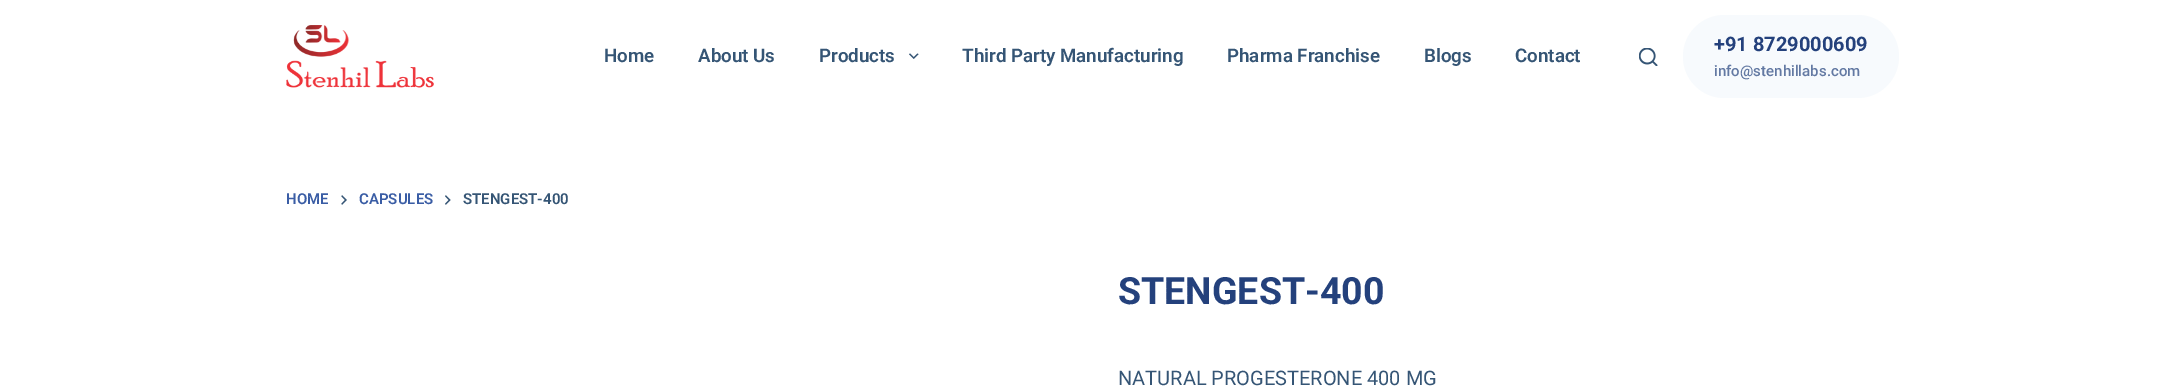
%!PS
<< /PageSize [2184 386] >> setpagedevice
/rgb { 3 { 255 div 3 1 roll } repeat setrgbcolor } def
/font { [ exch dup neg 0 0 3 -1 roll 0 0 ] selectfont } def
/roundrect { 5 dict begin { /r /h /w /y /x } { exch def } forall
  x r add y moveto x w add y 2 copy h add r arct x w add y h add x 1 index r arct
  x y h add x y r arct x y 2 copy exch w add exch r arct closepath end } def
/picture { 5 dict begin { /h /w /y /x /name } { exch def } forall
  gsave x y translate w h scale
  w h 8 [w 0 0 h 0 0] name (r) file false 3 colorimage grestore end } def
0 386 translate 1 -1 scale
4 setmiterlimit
255 255 255 rgb
0 0 2184 386 rectfill
(img/1.rgb) 286 25 148 63 picture
(img/2.rgb) 909 53 10 6 picture
(img/3.rgb) 1639 48 19 18 picture
247 250 253 rgb
1683 15 216 83 41.5 roundrect fill
(img/4.rgb) 341 195 6 10 picture
(img/5.rgb) 445 195 6 10 picture
/Roboto-SemiBold 18.75 font
53 85 117 rgb
[
  [(Home) 604 62]
  [(About Us) 698 62]
  [(Products) 819 62]
  [(Third Party Manufacturing) 962 62]
  [(Pharma Franchise) 1227 62]
  [(Blogs) 1424 62]
  [(Contact) 1515 62]
] { aload pop moveto show } forall
/Roboto-Bold 20 font
36 65 124 rgb
1714 51 moveto (+91 8729000609) show
/Roboto-Medium 15 font
99 121 163 rgb
1714 76 moveto (info@stenhillabs.com) show
/Roboto-SemiBold 15 font
58 93 165 rgb
286 204 moveto (HOME) show
359 204 moveto (CAPSULES) show
53 85 117 rgb
463 204 moveto (STENGEST-400) show
/Roboto-Bold 37.5 font
36 65 124 rgb
1118 304 moveto (STENGEST-400) show
/Roboto-Regular 20 font
53 85 117 rgb
1118 385 moveto (NATURAL PROGESTERONE 400 MG) show
showpage
